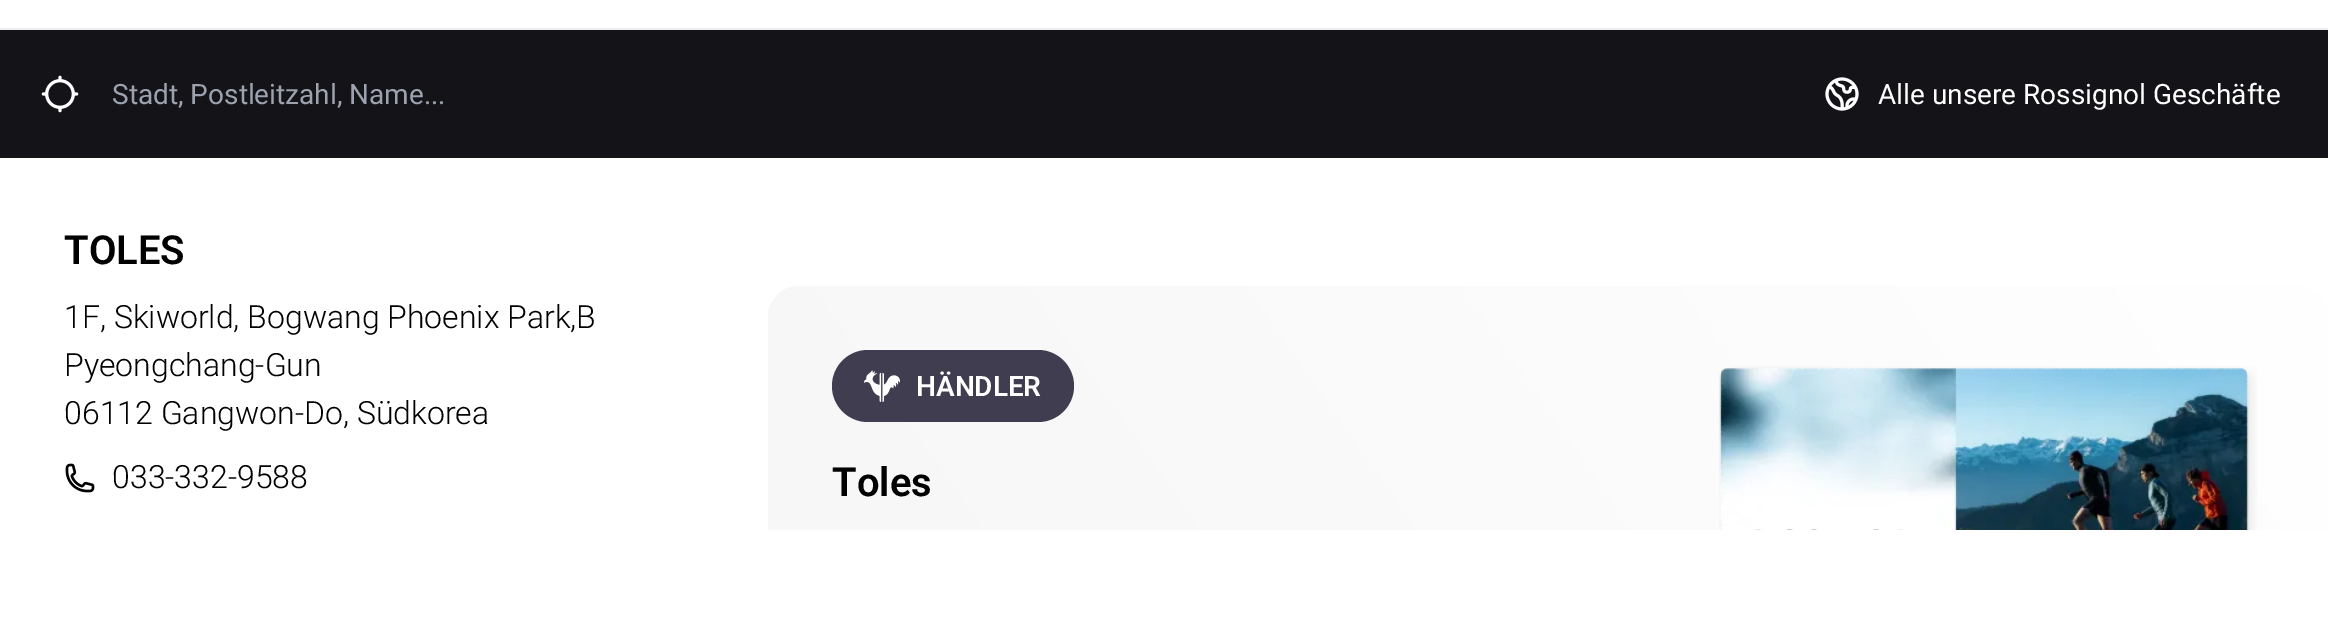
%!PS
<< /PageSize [2328 630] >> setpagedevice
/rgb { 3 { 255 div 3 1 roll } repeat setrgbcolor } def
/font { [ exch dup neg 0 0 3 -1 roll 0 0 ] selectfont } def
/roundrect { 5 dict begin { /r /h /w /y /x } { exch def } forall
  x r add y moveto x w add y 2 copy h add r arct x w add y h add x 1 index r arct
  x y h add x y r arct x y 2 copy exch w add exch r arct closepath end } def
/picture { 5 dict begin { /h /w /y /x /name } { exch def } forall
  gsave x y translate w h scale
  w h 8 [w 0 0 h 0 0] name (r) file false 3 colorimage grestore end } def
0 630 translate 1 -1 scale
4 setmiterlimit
255 255 255 rgb
0 0 2328 630 rectfill
238 237 241 rgb
0 28 2328 2 rectfill
20 19 24 rgb
0 30 2328 128 rectfill
(img/1.rgb) 41 75 38 38 picture
(img/2.rgb) 1825 77 34 34 picture
(img/3.rgb) 65 463 30 30 picture
gsave 800 286 moveto 2296 286 lineto 2313.5 286 2328 300.5 2328 318 curveto 2328 530 lineto 768 530 lineto 768 318 lineto 768 300.5 782.5 286 800 286 curveto closepath clip newpath
<< /ShadingType 2 /ColorSpace /DeviceRGB /Coords [506 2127 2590 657] /Extend [true true] /Function << /FunctionType 2 /Domain [0 1] /C0 [0.945 0.945 0.945] /C1 [1 1 1] /N 1 >> >> shfill grestore
63 61 79 rgb
832 350 242 72 36 roundrect fill
(img/4.rgb) 864 370 36 32 picture
(img/5.rgb) 1719 366 538 164 picture
/Roboto-Regular 28 font
156 163 175 rgb
112 104 moveto (Stadt, Postleitzahl, Name...) show
255 255 255 rgb
1878 104 moveto (Alle unsere Rossignol Geschäfte) show
/Roboto-SemiBold 40 font
0 0 0 rgb
64 264 moveto (TOLES) show
/Roboto-Light 32 font
[
  [(1F, Skiworld, Bogwang Phoenix Park,B) 64 328]
  [(Pyeongchang-Gun) 64 376]
  [(06112 Gangwon-Do, Südkorea) 64 424]
  [(033-332-9588) 112 488]
] { aload pop moveto show } forall
/Roboto-SemiBold 28 font
255 255 255 rgb
916 396 moveto (HÄNDLER) show
/Roboto-SemiBold 40 font
0 0 0 rgb
832 496 moveto (Toles) show
showpage
